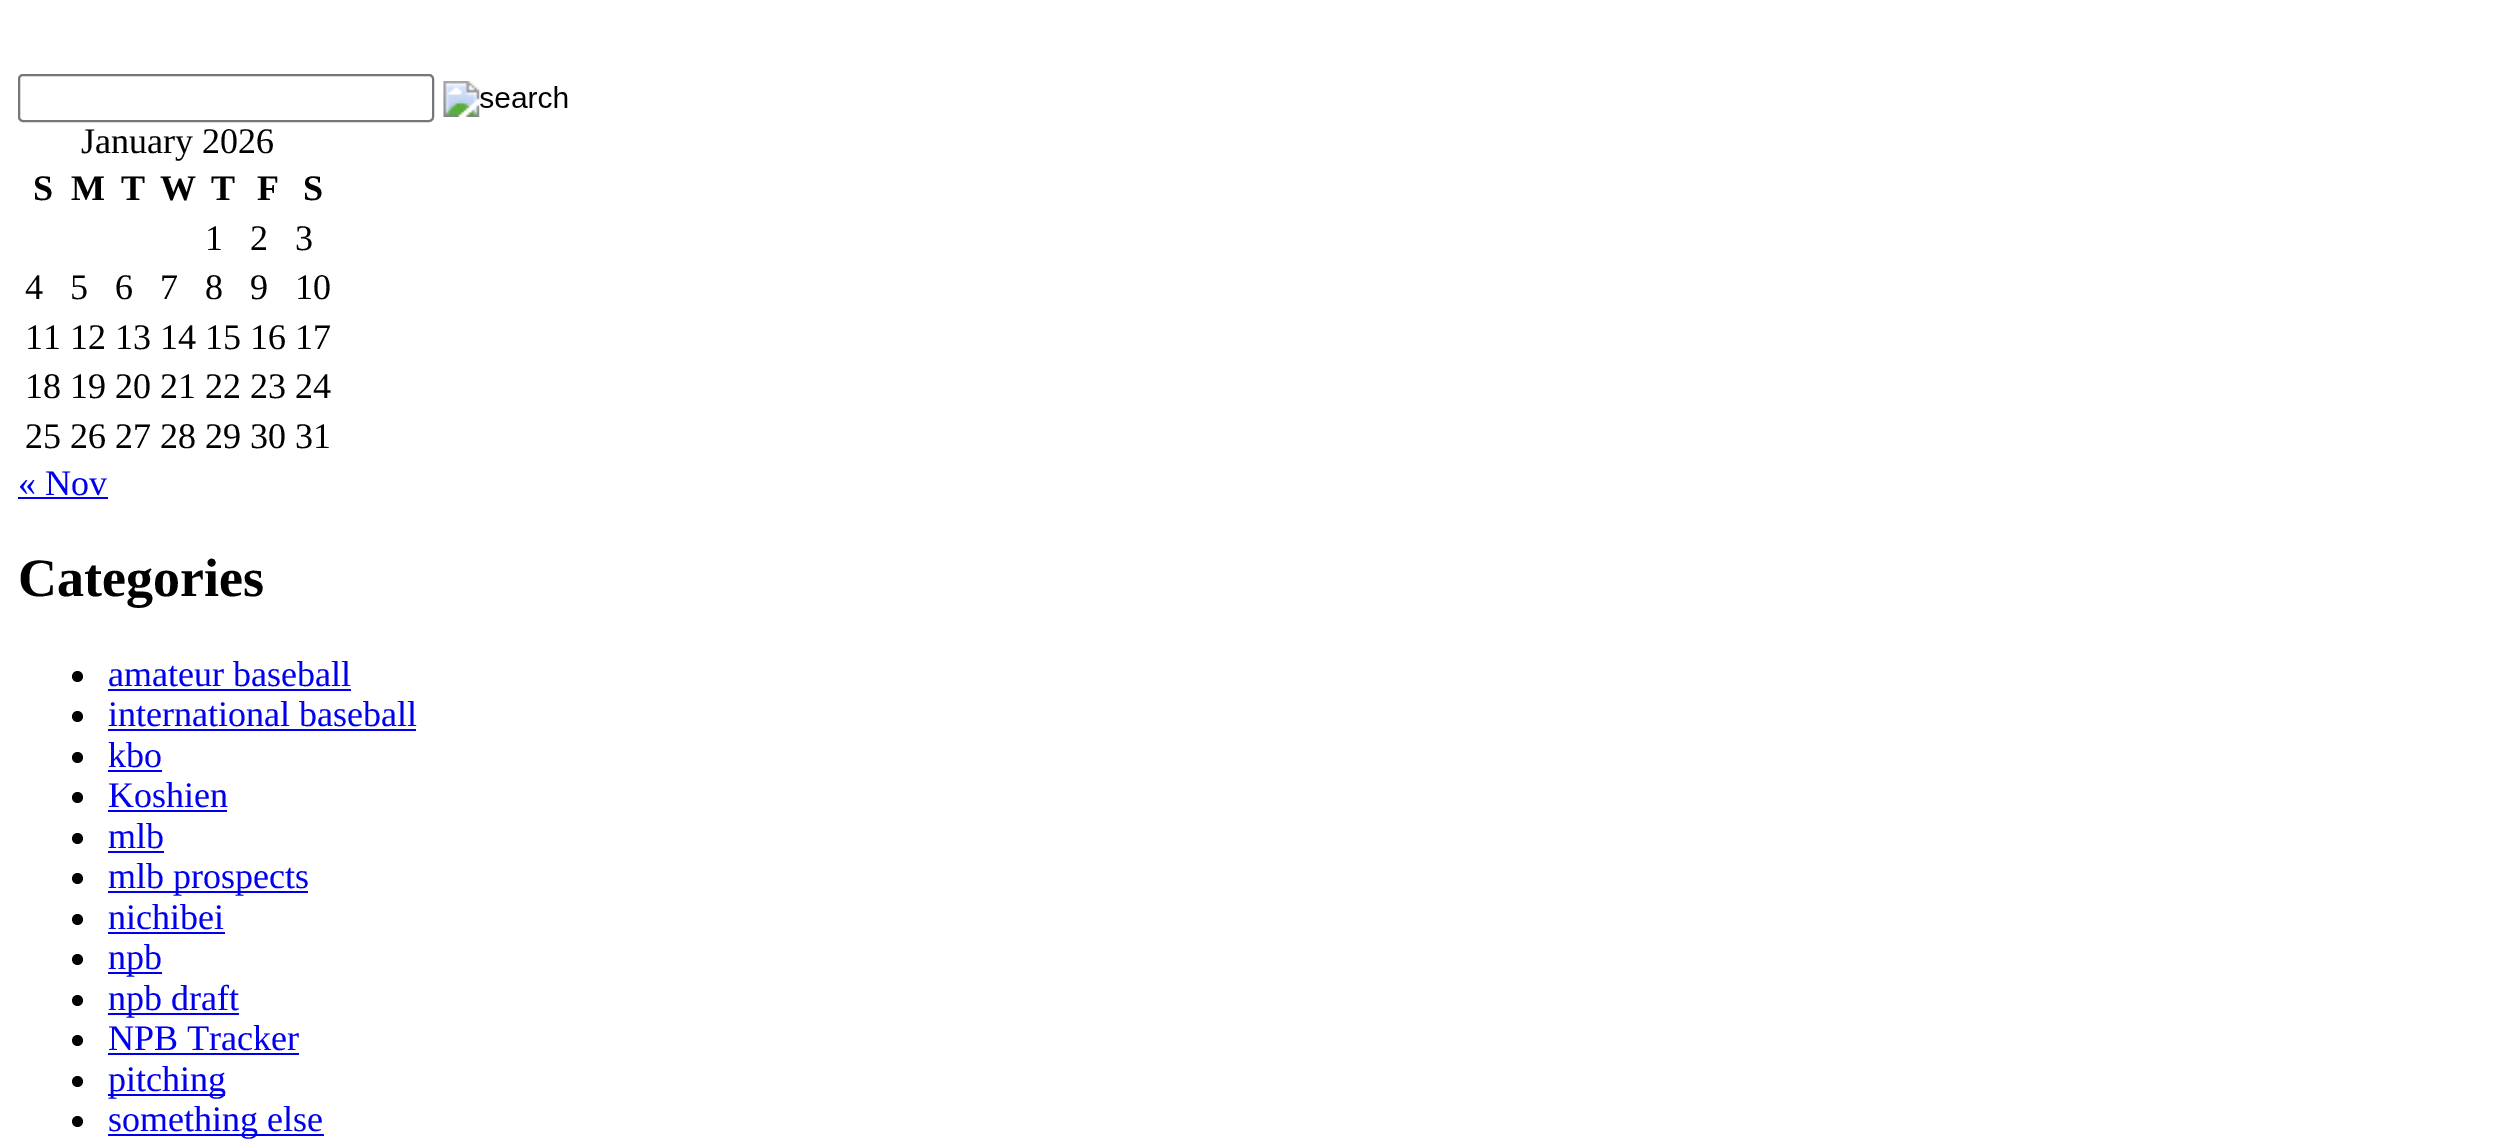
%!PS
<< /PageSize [2514 1146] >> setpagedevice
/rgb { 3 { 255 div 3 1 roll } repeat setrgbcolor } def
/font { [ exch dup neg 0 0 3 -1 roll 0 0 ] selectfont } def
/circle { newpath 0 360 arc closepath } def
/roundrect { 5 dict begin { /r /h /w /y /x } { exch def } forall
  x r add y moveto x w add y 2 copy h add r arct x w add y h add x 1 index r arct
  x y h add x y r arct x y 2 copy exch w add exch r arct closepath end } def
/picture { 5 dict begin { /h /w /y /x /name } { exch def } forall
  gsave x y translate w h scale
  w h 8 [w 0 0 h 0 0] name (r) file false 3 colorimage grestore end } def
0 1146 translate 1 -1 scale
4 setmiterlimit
255 255 255 rgb
0 0 2514 1146 rectfill
118 118 118 rgb
2 setlinewidth
19 75 414 46 4 roundrect stroke
(img/1.rgb) 443 81 125 36 picture
0 0 238 rgb
18 497 90 2 rectfill
0 0 0 rgb
77.5 676.5 5.5 circle fill
0 0 238 rgb
108 689 243 2 rectfill
0 0 0 rgb
77.5 716.5 5.5 circle fill
0 0 238 rgb
108 729 308 2 rectfill
0 0 0 rgb
77.5 757.5 5.5 circle fill
0 0 238 rgb
108 770 54 2 rectfill
0 0 0 rgb
77.5 797.5 5.5 circle fill
0 0 238 rgb
108 810 119 2 rectfill
0 0 0 rgb
77.5 838.5 5.5 circle fill
0 0 238 rgb
108 851 56 2 rectfill
0 0 0 rgb
77.5 878.5 5.5 circle fill
0 0 238 rgb
108 891 200 2 rectfill
0 0 0 rgb
77.5 919.5 5.5 circle fill
0 0 238 rgb
108 932 117 2 rectfill
0 0 0 rgb
77.5 959.5 5.5 circle fill
0 0 238 rgb
108 972 54 2 rectfill
0 0 0 rgb
77.5 1000.5 5.5 circle fill
0 0 238 rgb
108 1013 131 2 rectfill
0 0 0 rgb
77.5 1040.5 5.5 circle fill
0 0 238 rgb
108 1053 191 2 rectfill
0 0 0 rgb
77.5 1081.5 5.5 circle fill
0 0 238 rgb
108 1094 117 2 rectfill
0 0 0 rgb
77.5 1121.5 5.5 circle fill
0 0 238 rgb
108 1134 216 2 rectfill
/LiberationSerif-Regular 36 font
0 0 0 rgb
81 153 moveto (January 2026) show
/LiberationSerif-Bold 36 font
[
  [(S) 33 200]
  [(M) 71 200]
  [(T) 121 200]
  [(W) 160 200]
  [(T) 211 200]
  [(F) 257 200]
  [(S) 303 200]
] { aload pop moveto show } forall
/LiberationSerif-Regular 36 font
[
  [(1) 205 250]
  [(2) 250 250]
  [(3) 295 250]
  [(4) 25 299]
  [(5) 70 299]
  [(6) 115 299]
  [(7) 160 299]
  [(8) 205 299]
  [(9) 250 299]
  [(10) 295 299]
  [(11 12 13 14 15 16 17) 25 349]
  [(18 19 20 21 22 23 24) 25 398]
  [(25 26 27 28 29 30 31) 25 448]
] { aload pop moveto show } forall
0 0 238 rgb
18 495 moveto (« Nov) show
/LiberationSerif-Bold 54 font
0 0 0 rgb
18 596 moveto (Categories) show
/LiberationSerif-Regular 36 font
0 0 238 rgb
[
  [(amateur baseball) 108 686]
  [(international baseball) 108 726]
  [(kbo) 108 767]
  [(Koshien) 108 807]
  [(mlb) 108 848]
  [(mlb prospects) 108 888]
  [(nichibei) 108 929]
  [(npb) 108 969]
  [(npb draft) 108 1010]
  [(NPB Tracker) 108 1050]
  [(pitching) 108 1091]
  [(something else) 108 1131]
] { aload pop moveto show } forall
showpage
